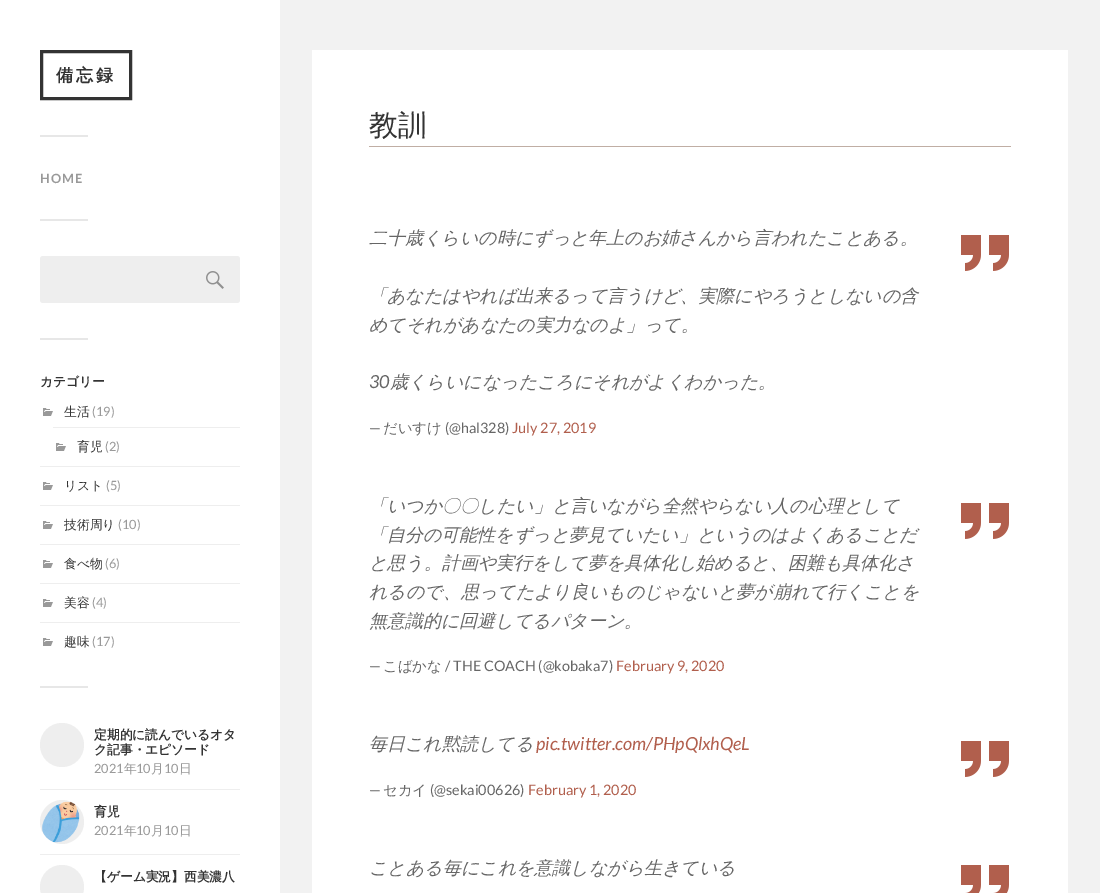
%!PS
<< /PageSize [1100 893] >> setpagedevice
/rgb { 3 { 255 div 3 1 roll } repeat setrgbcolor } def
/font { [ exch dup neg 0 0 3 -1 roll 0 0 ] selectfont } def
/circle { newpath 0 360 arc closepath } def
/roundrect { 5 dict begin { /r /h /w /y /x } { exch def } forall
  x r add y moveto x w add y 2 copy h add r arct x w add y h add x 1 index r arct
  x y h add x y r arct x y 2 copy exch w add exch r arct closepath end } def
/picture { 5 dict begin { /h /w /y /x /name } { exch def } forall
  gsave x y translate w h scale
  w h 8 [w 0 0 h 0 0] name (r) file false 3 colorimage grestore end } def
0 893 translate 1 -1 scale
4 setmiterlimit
242 242 242 rgb
0 0 1100 893 rectfill
255 255 255 rgb
0 0 280 893 rectfill
51 51 51 rgb
3 setlinewidth
41.5 51.5 89 47 rectstroke
231 231 231 rgb
40 135 48 2 rectfill
40 219 48 2 rectfill
238 238 238 rgb
40 256 200 47 3 roundrect fill
(img/1.rgb) 206 271 18 18 picture
231 231 231 rgb
40 338 48 2 rectfill
238 238 238 rgb
40 466 200 1 rectfill
(img/2.rgb) 43 408 10 8 picture
53 427 187 1 rectfill
(img/2.rgb) 56 443 10 8 picture
40 505 200 1 rectfill
(img/2.rgb) 43 482 10 8 picture
40 544 200 1 rectfill
(img/2.rgb) 43 521 10 8 picture
40 583 200 1 rectfill
(img/2.rgb) 43 560 10 8 picture
40 622 200 1 rectfill
(img/2.rgb) 43 599 10 8 picture
(img/2.rgb) 43 638 10 8 picture
231 231 231 rgb
40 686 48 2 rectfill
238 238 238 rgb
40 789 200 1 rectfill
62 745 22 circle fill
40 854 200 1 rectfill
62 822 22 circle fill
(img/3.rgb) 42 801 38 42 picture
62 887 22 circle fill
255 255 255 rgb
312 50 756 843 rectfill
192 174 164 rgb
369 146 642 1 rectfill
(img/4.rgb) 961 235 48 36 picture
(img/4.rgb) 961 503 48 36 picture
(img/4.rgb) 961 741 48 36 picture
(img/5.rgb) 961 865 48 28 picture
/WenQuanYiZenHei-Bold 17 font
51 51 51 rgb
56 81 moveto 3 0 (備忘録) ashow
/Lato-Bold 12.75 font
153 153 153 rgb
40 183 moveto 1 0 (HOME) ashow
/WenQuanYiZenHei-Bold 12.75 font
51 51 51 rgb
40 386 moveto (カテゴリー) show
/WenQuanYiZenHei-Medium 12.75 font
64 416 moveto (生活) show
/Lato-Regular 12.75 font
153 153 153 rgb
92 416 moveto (\(19\)) show
/WenQuanYiZenHei-Medium 12.75 font
51 51 51 rgb
77 451 moveto (育児) show
/Lato-Regular 12.75 font
153 153 153 rgb
105 451 moveto (\(2\)) show
/WenQuanYiZenHei-Medium 12.75 font
51 51 51 rgb
64 490 moveto (リスト) show
/Lato-Regular 12.75 font
153 153 153 rgb
106 490 moveto (\(5\)) show
/WenQuanYiZenHei-Medium 12.75 font
51 51 51 rgb
64 529 moveto (技術周り) show
/Lato-Regular 12.75 font
153 153 153 rgb
118 529 moveto (\(10\)) show
/WenQuanYiZenHei-Medium 12.75 font
51 51 51 rgb
64 568 moveto (食べ物) show
/Lato-Regular 12.75 font
153 153 153 rgb
105 568 moveto (\(6\)) show
/WenQuanYiZenHei-Medium 12.75 font
51 51 51 rgb
64 607 moveto (美容) show
/Lato-Regular 12.75 font
153 153 153 rgb
92 607 moveto (\(4\)) show
/WenQuanYiZenHei-Medium 12.75 font
51 51 51 rgb
64 646 moveto (趣味) show
/Lato-Regular 12.75 font
153 153 153 rgb
92 646 moveto (\(17\)) show
/WenQuanYiZenHei-Bold 12.75 font
51 51 51 rgb
94 739 moveto (定期的に読んでいるオタ) show
94 754 moveto (ク記事・エピソード) show
/Lato-Regular 12.75 font
153 153 153 rgb
94 773 moveto (2021) show
/WenQuanYiZenHei-Medium 12.75 font
124 773 moveto (年) show
/Lato-Regular 12.75 font
136 773 moveto (10) show
/WenQuanYiZenHei-Medium 12.75 font
151 773 moveto (月) show
/Lato-Regular 12.75 font
164 773 moveto (10) show
/WenQuanYiZenHei-Medium 12.75 font
179 773 moveto (日) show
/WenQuanYiZenHei-Bold 12.75 font
51 51 51 rgb
94 816 moveto (育児) show
/Lato-Regular 12.75 font
153 153 153 rgb
94 835 moveto (2021) show
/WenQuanYiZenHei-Medium 12.75 font
124 835 moveto (年) show
/Lato-Regular 12.75 font
136 835 moveto (10) show
/WenQuanYiZenHei-Medium 12.75 font
151 835 moveto (月) show
/Lato-Regular 12.75 font
164 835 moveto (10) show
/WenQuanYiZenHei-Medium 12.75 font
179 835 moveto (日) show
/WenQuanYiZenHei-Bold 12.75 font
51 51 51 rgb
94 881 moveto (【ゲーム実況】西美濃八) show
/WenQuanYiZenHei-Medium 29 font
369 135 moveto (教訓) show
/WenQuanYiZenHei-MediumItalic 18 font
102 102 102 rgb
[
  [(二十歳くらいの時にずっと年上のお姉さんから言われたことある。) 369 244]
  [(「あなたはやれば出来るって言うけど、実際にやろうとしないの含) 369 302]
  [(めてそれがあなたの実力なのよ」って。) 369 331]
] { aload pop moveto show } forall
/Lato-Italic 18 font
369 388 moveto (30) show
/WenQuanYiZenHei-MediumItalic 18 font
390 388 moveto (歳くらいになったころにそれがよくわかった。) show
/Lato-Regular 14.4 font
369 433 moveto (—) show
/WenQuanYiZenHei-Medium 14.4 font
383 433 moveto (だいすけ) show
/Lato-Regular 14.4 font
445 433 moveto (\(@hal328\)) show
177 95 77 rgb
512 433 moveto (July 27, 2019) show
/WenQuanYiZenHei-MediumItalic 18 font
102 102 102 rgb
[
  [(「いつか〇〇したい」と言いながら全然やらない人の心理として) 369 512]
  [(「自分の可能性をずっと夢見ていたい」というのはよくあることだ) 369 541]
  [(と思う。計画や実行をして夢を具体化し始めると、困難も具体化さ) 369 569]
  [(れるので、思ってたより良いものじゃないと夢が崩れて行くことを) 369 598]
  [(無意識的に回避してるパターン。) 369 627]
] { aload pop moveto show } forall
/Lato-Regular 14.4 font
369 671 moveto (—) show
/WenQuanYiZenHei-Medium 14.4 font
383 671 moveto (こばかな) show
/Lato-Regular 14.4 font
445 671 moveto (/ THE COACH \(@kobaka7\)) show
177 95 77 rgb
616 671 moveto (February 9, 2020) show
/WenQuanYiZenHei-MediumItalic 18 font
102 102 102 rgb
369 750 moveto (毎日これ黙読してる) show
/Lato-Italic 18 font
177 95 77 rgb
536 750 moveto (pic.twitter.com/PHpQlxhQeL) show
/Lato-Regular 14.4 font
102 102 102 rgb
369 795 moveto (—) show
/WenQuanYiZenHei-Medium 14.4 font
383 795 moveto (セカイ) show
/Lato-Regular 14.4 font
430 795 moveto (\(@sekai00626\)) show
177 95 77 rgb
528 795 moveto (February 1, 2020) show
/WenQuanYiZenHei-MediumItalic 18 font
102 102 102 rgb
369 874 moveto (ことある毎にこれを意識しながら生きている) show
showpage
